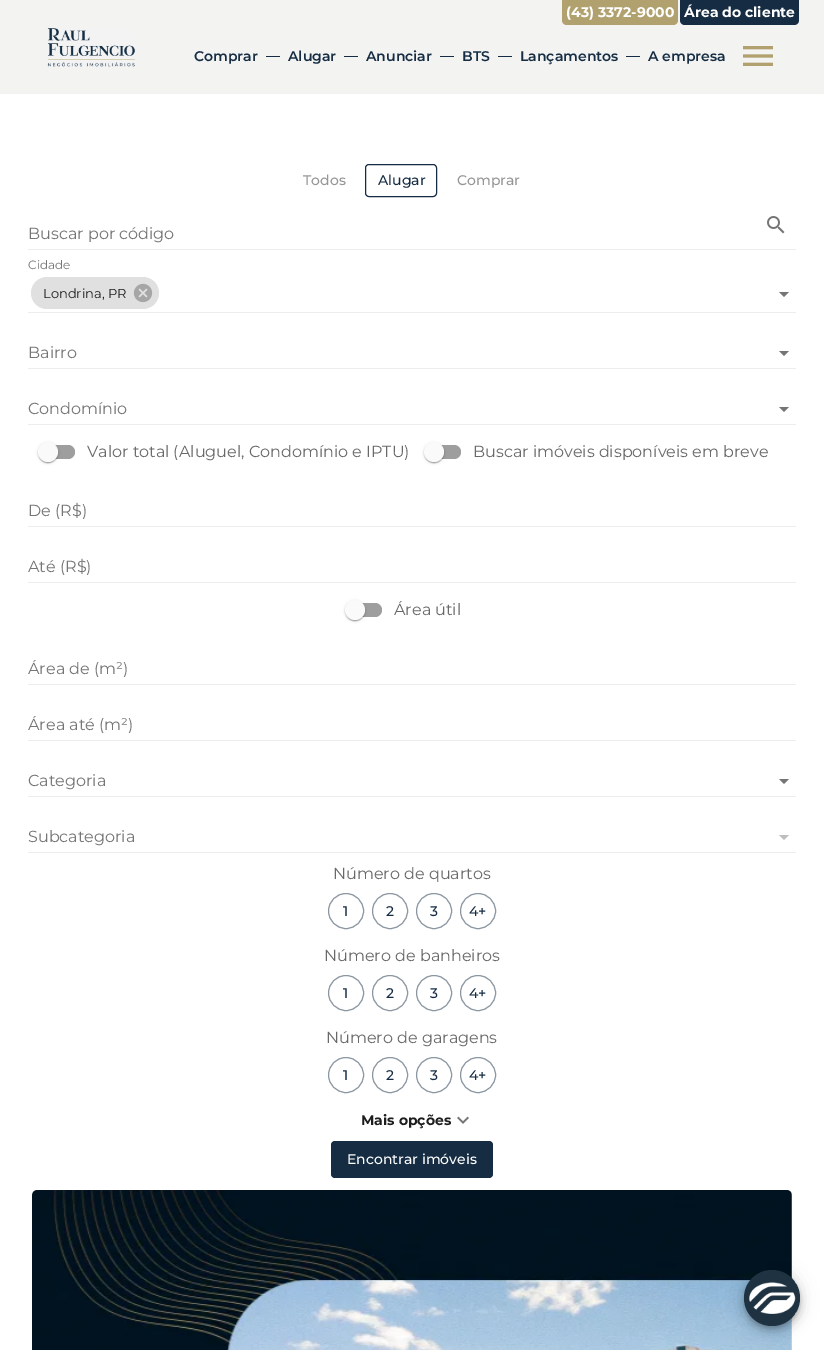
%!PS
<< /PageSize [824 1350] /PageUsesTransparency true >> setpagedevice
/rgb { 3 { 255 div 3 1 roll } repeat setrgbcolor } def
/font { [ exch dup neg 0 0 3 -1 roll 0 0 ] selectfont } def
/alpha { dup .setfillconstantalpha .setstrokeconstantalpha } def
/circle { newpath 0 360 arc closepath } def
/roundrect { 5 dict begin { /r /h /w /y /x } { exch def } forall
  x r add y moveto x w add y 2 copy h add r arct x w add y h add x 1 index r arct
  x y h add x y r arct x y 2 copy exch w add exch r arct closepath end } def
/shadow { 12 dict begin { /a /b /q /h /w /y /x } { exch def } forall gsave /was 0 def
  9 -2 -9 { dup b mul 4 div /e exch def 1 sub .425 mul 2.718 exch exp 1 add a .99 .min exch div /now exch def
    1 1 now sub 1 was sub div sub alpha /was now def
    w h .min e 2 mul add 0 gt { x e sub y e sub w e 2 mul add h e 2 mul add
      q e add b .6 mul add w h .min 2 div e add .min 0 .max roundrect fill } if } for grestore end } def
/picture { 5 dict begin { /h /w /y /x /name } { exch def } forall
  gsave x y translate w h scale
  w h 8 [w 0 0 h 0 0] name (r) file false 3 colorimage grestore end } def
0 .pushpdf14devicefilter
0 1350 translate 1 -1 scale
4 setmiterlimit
255 255 255 rgb
0 0 824 1350 rectfill
243 243 242 rgb
0 0 824 94 rectfill
177 161 110 rgb
562 0 moveto 678 0 lineto 678 20 lineto 678 23 676 25 673 25 curveto 567 25 lineto 564 25 562 23 562 20 curveto closepath fill
21 44 67 rgb
680 0 moveto 799 0 lineto 799 20 lineto 799 23 797 25 794 25 curveto 685 25 lineto 682 25 680 23 680 20 curveto closepath fill
(img/1.rgb) 47 28 89 39 picture
[
  [266 56 14 1 21 44 67]
  [344 56 14 1 21 44 67]
  [440 56 14 1 21 44 67]
  [498 56 14 1 21 44 67]
  [626 56 14 1 21 44 67]
] { aload pop rgb rectfill } forall
(img/2.rgb) 743 46 30 20 picture
365.5 164.5 71 32 3.5 roundrect stroke
237 237 237 rgb
28 249 768 1 rectfill
(img/3.rgb) 767 216 18 18 picture
224 224 224 rgb
31 277 128 32 16 roundrect fill
(img/4.rgb) 133 283 20 20 picture
117 117 117 rgb
779 292 moveto 784 297 lineto 789 292 lineto closepath fill
237 237 237 rgb
28 312 768 1 rectfill
117 117 117 rgb
779 351 moveto 784 356 lineto 789 351 lineto closepath fill
237 237 237 rgb
28 368 768 1 rectfill
117 117 117 rgb
779 407 moveto 784 412 lineto 789 407 lineto closepath fill
237 237 237 rgb
28 424 768 1 rectfill
158 158 158 rgb
41 445 34 14 7 roundrect fill
0 0 0 rgb
38 443 20 20 10 1.5 0.12 shadow
38 443 20 20 10 0.5 0.14 shadow
39 445 18 18 9 0.5 0.2 shadow
250 250 250 rgb
48 452 10 circle fill
158 158 158 rgb
427 445 34 14 7 roundrect fill
0 0 0 rgb
424 443 20 20 10 1.5 0.12 shadow
424 443 20 20 10 0.5 0.14 shadow
425 445 18 18 9 0.5 0.2 shadow
250 250 250 rgb
434 452 10 circle fill
237 237 237 rgb
28 526 768 1 rectfill
28 582 768 1 rectfill
158 158 158 rgb
348 603 34 14 7 roundrect fill
0 0 0 rgb
345 601 20 20 10 1.5 0.12 shadow
345 601 20 20 10 0.5 0.14 shadow
346 603 18 18 9 0.5 0.2 shadow
250 250 250 rgb
355 610 10 circle fill
237 237 237 rgb
28 684 768 1 rectfill
28 740 768 1 rectfill
117 117 117 rgb
779 779 moveto 784 784 lineto 789 779 lineto closepath fill
237 237 237 rgb
28 796 768 1 rectfill
189 189 189 rgb
779 835 moveto 784 840 lineto 789 835 lineto closepath fill
237 237 237 rgb
28 852 768 1 rectfill
138 150 161 rgb
346 911 17.5 circle stroke
390 911 17.5 circle stroke
434 911 17.5 circle stroke
478 911 17.5 circle stroke
346 993 17.5 circle stroke
390 993 17.5 circle stroke
434 993 17.5 circle stroke
478 993 17.5 circle stroke
346 1075 17.5 circle stroke
390 1075 17.5 circle stroke
434 1075 17.5 circle stroke
478 1075 17.5 circle stroke
(img/5.rgb) 457 1116 12 8 picture
21 44 67 rgb
331 1141 162 37 4 roundrect fill
(img/6.rgb) 32 1190 760 160 picture
0 0 0 rgb
744 1271 56 56 28 9 0.12 shadow
744 1276 56 56 28 5 0.14 shadow
745 1274 54 54 27 2.5 0.2 shadow
30 50 65 rgb
772 1298 28 circle fill
(img/7.rgb) 749 1282 47 32 picture
/Montserrat-Bold 14 font
255 255 255 rgb
566 17 moveto (\(43\) 3372-9000) show
684 17 moveto (Área do cliente) show
/Montserrat-SemiBold 14 font
21 44 67 rgb
[
  [(Comprar) 194 61]
  [(Alugar) 288 61]
  [(Anunciar) 366 61]
  [(BTS) 462 61]
  [(Lançamentos) 520 61]
  [(A empresa) 648 61]
] { aload pop moveto show } forall
/Montserrat-Medium 14 font
150 150 150 rgb
303 185 moveto (Todos) show
21 44 67 rgb
378 185 moveto (Alugar) show
150 150 150 rgb
457 185 moveto (Comprar) show
/Montserrat-Regular 16 font
117 117 117 rgb
28 239 moveto (Buscar por código) show
/Montserrat-Regular 12 font
28 269 moveto (Cidade) show
/Montserrat-Regular 13 font
29 29 29 rgb
43 298 moveto (Londrina, PR) show
/Montserrat-Regular 16 font
117 117 117 rgb
28 358 moveto (Bairro) show
28 414 moveto (Condomínio) show
105 105 105 rgb
87 457 moveto (Valor total \(Aluguel, Condomínio e IPTU\)) show
473 457 moveto (Buscar imóveis disponíveis em breve) show
117 117 117 rgb
28 516 moveto (De \(R$\)) show
28 572 moveto (Até \(R$\)) show
105 105 105 rgb
394 615 moveto (Área útil) show
117 117 117 rgb
[
  [(Área de \(m²\)) 28 674]
  [(Área até \(m²\)) 28 730]
  [(Categoria) 28 786]
  [(Subcategoria) 28 842]
] { aload pop moveto show } forall
105 105 105 rgb
333 879 moveto (Número de quartos) show
/Montserrat-Medium 14 font
21 44 67 rgb
[
  [(1) 343 916]
  [(2) 386 916]
  [(3) 430 916]
  [(4+) 469 916]
] { aload pop moveto show } forall
/Montserrat-Regular 16 font
105 105 105 rgb
324 961 moveto (Número de banheiros) show
/Montserrat-Medium 14 font
21 44 67 rgb
[
  [(1) 343 998]
  [(2) 386 998]
  [(3) 430 998]
  [(4+) 469 998]
] { aload pop moveto show } forall
/Montserrat-Regular 16 font
105 105 105 rgb
326 1043 moveto (Número de garagens) show
/Montserrat-Medium 14 font
21 44 67 rgb
[
  [(1) 343 1080]
  [(2) 386 1080]
  [(3) 430 1080]
  [(4+) 469 1080]
] { aload pop moveto show } forall
/Montserrat-Bold 14 font
29 29 29 rgb
361 1125 moveto (Mais opções) show
/Montserrat-Medium 14 font
255 255 255 rgb
347 1164 moveto (Encontrar imóveis) show
.poppdf14devicefilter showpage
